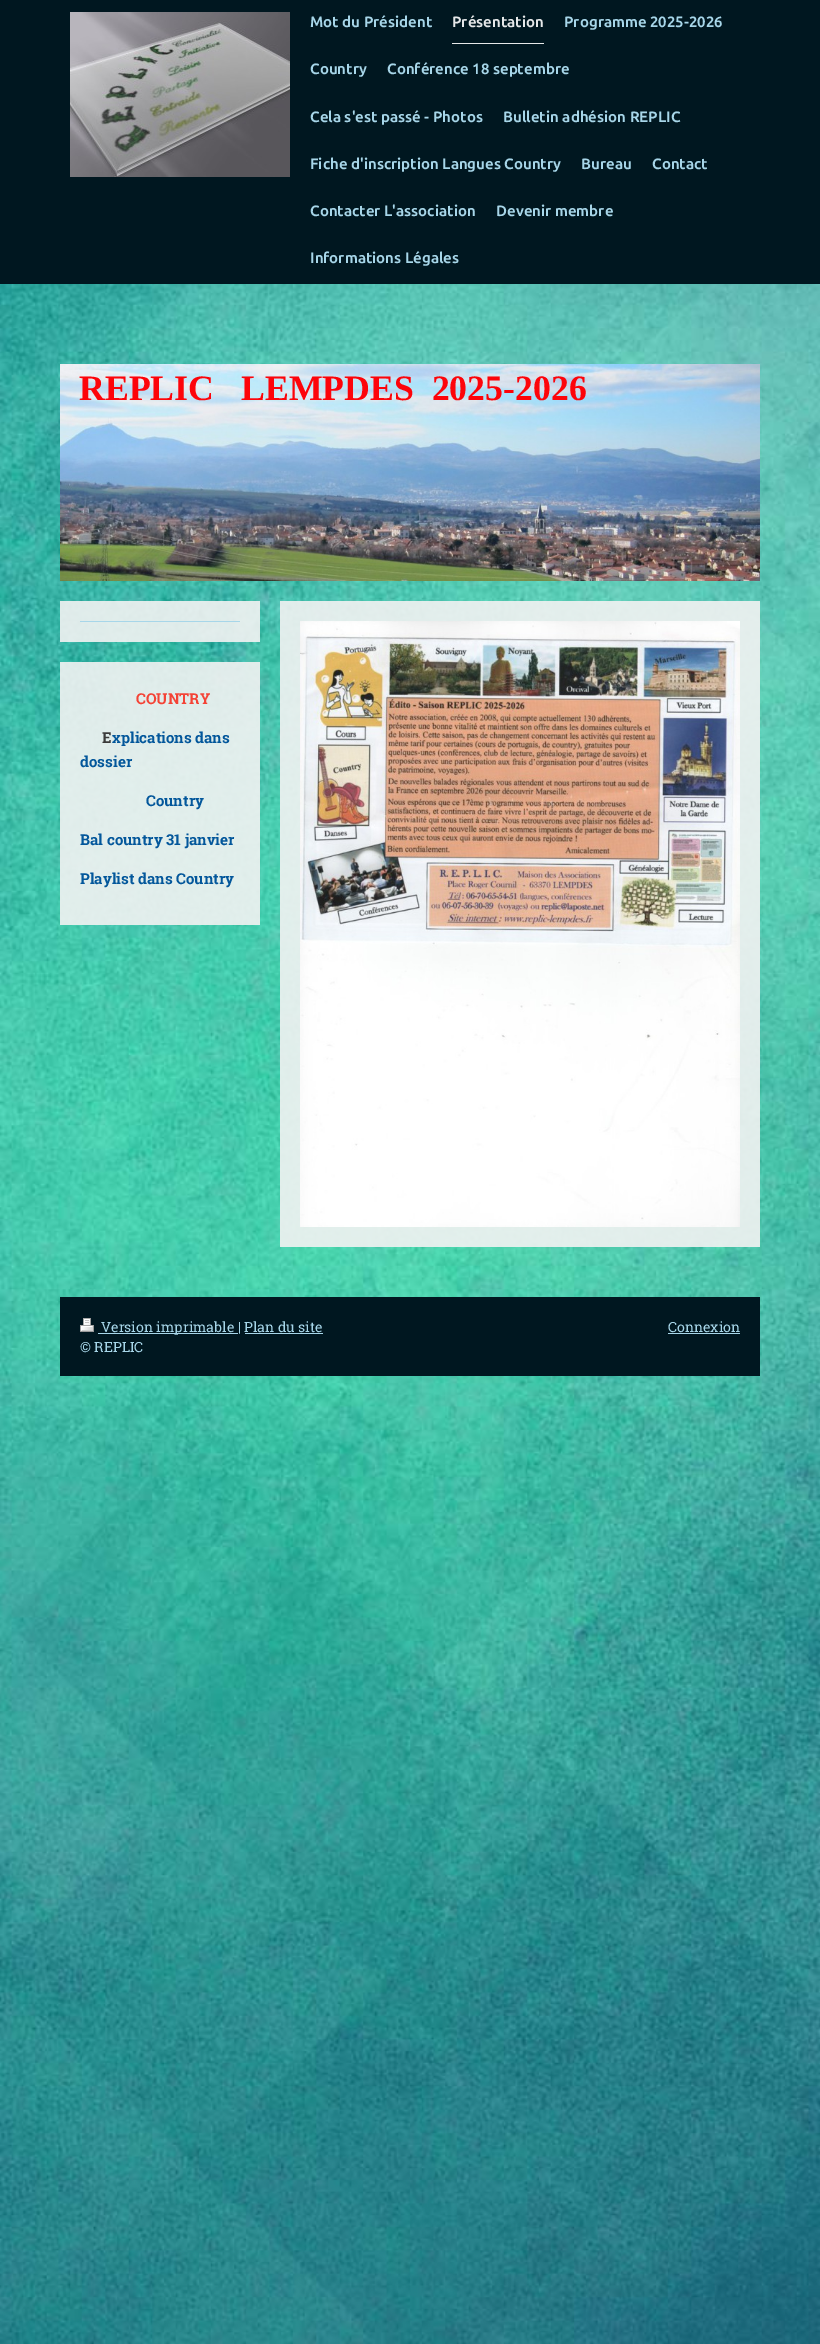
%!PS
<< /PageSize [820 2344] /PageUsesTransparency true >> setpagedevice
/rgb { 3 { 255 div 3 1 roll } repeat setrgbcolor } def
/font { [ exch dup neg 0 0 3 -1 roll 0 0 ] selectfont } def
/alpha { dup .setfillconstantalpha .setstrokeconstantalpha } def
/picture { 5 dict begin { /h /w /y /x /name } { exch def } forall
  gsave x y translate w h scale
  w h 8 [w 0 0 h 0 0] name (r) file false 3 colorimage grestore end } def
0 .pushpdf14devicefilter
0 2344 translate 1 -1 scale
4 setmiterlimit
255 255 255 rgb
0 0 820 2344 rectfill
(img/1.rgb) 0 284 820 2060 picture
0 23 32 rgb
0 0 820 284 rectfill
(img/2.rgb) 70 12 220 165 picture
230 232 233 rgb
452 43 92 1 rectfill
(img/3.rgb) 60 364 700 217 picture
0.9 alpha
[
  [60 601 200 41 242 242 242]
] { aload pop rgb rectfill } forall
1 alpha
[
  [80 621 160 1 167 214 233]
] { aload pop rgb rectfill } forall
0.9 alpha
[
  [60 662 200 263 242 242 242]
  [280 601 480 646 242 242 242]
] { aload pop rgb rectfill } forall
1 alpha
(img/4.rgb) 300 621 440 606 picture
0 23 32 rgb
60 1297 700 79 rectfill
(img/5.rgb) 80 1318 14 14 picture
[
  [98 1333 140 1 167 214 233]
  [245 1333 78 1 167 214 233]
  [668 1333 72 1 167 214 233]
] { aload pop rgb rectfill } forall
/Ubuntu-Bold 15 font
310 27 moveto (Mot du Président) show
230 232 233 rgb
452 27 moveto (Présentation) show
167 214 233 rgb
[
  [(Programme 2025-2026) 564 27]
  [(Country) 310 74]
  [(Conférence 18 septembre) 387 74]
  [(Cela s'est passé - Photos) 310 122]
  [(Bulletin adhésion REPLIC) 503 122]
  [(Fiche d'inscription Langues Country) 310 169]
  [(Bureau) 581 169]
  [(Contact) 652 169]
  [(Contacter L'association) 310 216]
  [(Devenir membre) 496 216]
  [(Informations Légales) 310 263]
] { aload pop moveto show } forall
/LiberationSerif-Bold 35.75 font
253 4 10 rgb
79 400 moveto (REPLIC   LEMPDES  2025-2026) show
/RobotoSlab-Bold 15 font
244 67 54 rgb
136 704 moveto (COUNTRY) show
58 58 58 rgb
102 743 moveto (E) show
3 87 155 rgb
[
  [(xplications dans) 112 743]
  [(dossier) 80 767]
  [(Country) 146 806]
  [(Bal country 31 janvier) 80 845]
  [(Playlist dans Country) 80 884]
] { aload pop moveto show } forall
/RobotoSlab-Regular 14 font
167 214 233 rgb
[
  [(Version imprimable | Plan du site) 101 1332]
  [(© REPLIC) 80 1352]
  [(Connexion) 668 1332]
] { aload pop moveto show } forall
.poppdf14devicefilter showpage
